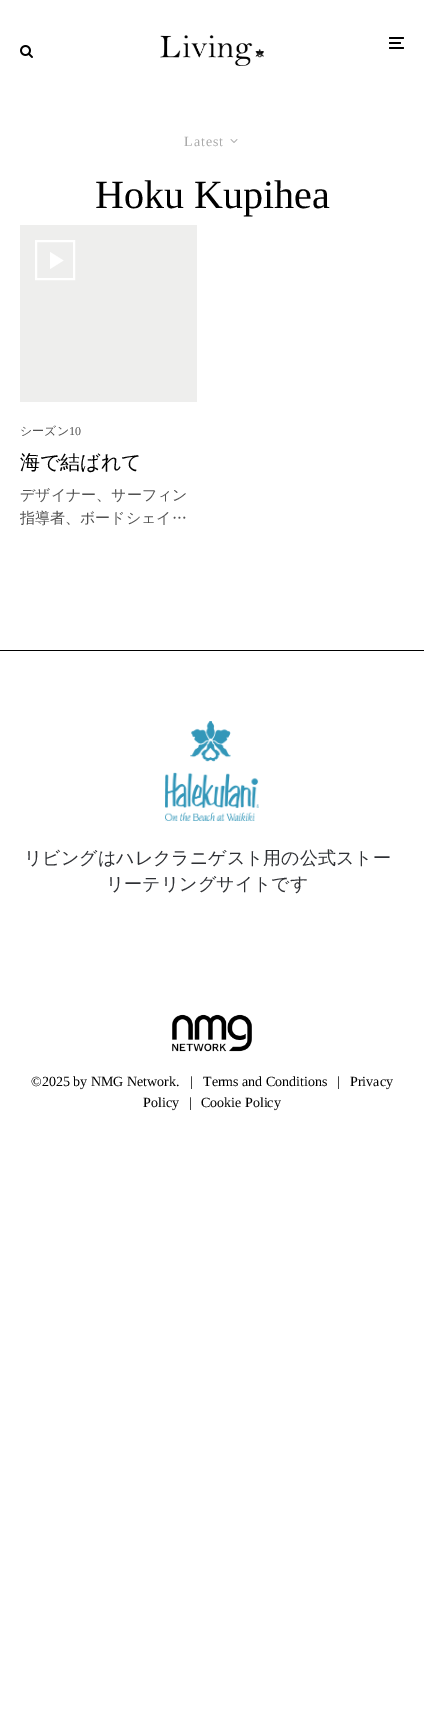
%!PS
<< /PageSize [424 1717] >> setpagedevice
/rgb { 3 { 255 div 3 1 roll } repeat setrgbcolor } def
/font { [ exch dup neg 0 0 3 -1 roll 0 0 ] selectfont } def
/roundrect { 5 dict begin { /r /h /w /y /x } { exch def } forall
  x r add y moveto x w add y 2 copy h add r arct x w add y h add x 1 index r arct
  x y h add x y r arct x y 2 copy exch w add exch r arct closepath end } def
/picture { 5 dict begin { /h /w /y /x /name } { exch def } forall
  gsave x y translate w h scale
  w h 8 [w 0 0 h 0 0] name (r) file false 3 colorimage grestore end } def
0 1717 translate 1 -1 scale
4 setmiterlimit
255 255 255 rgb
0 0 424 1717 rectfill
(img/1.rgb) 160 35 104 31 picture
0 0 0 rgb
389 42 12 2 1 roundrect fill
389 37 15 2 1 roundrect fill
389 47 15 2 1 roundrect fill
(img/2.rgb) 20 45 13 13 picture
(img/3.rgb) 230 139 8 4 picture
238 238 237 rgb
20 225 177 177 rectfill
255 255 255 rgb
2 setlinewidth
36 241 38 38 rectstroke
50 252 moveto 63.5 260.5 lineto 50 269 lineto closepath fill
0 0 0 rgb
0 650 424 1 rectfill
(img/4.rgb) 165 721 94 100 picture
(img/5.rgb) 172 1014 80 38 picture
/LiberationSerif-Regular 14 font
170 170 170 rgb
184 146 moveto 1 0 (Latest) ashow
/LiberationSerif-Regular 40 font
0 0 0 rgb
95 208 moveto (Hoku Kupihea) show
/WenQuanYiZenHei-Medium 12 font
81 81 81 rgb
20 435 moveto (シーズン) show
/LiberationSerif-Regular 12 font
69 435 moveto (10) show
/WenQuanYiZenHei-Medium 20 font
0 0 0 rgb
20 469 moveto (海で結ばれて) show
/WenQuanYiZenHei-Medium 15 font
81 81 81 rgb
20 500 moveto (デザイナー、サーフィン) show
20 523 moveto (指導者、ボードシェイ…) show
/WenQuanYiZenHei-Medium 18 font
47 49 53 rgb
24 864 moveto (リビングはハレクラニゲスト用の公式ストー) show
106 890 moveto (リーテリングサイトです) show
/LiberationSerif-Regular 14 font
0 0 0 rgb
[
  [(©2025 by NMG Network.) 31 1086]
  [(|) 190 1086]
  [(Terms and Conditions) 203 1086]
  [(|) 337 1086]
  [(Privacy) 350 1086]
  [(Policy) 143 1107]
  [(|) 189 1107]
  [(Cookie Policy) 201 1107]
] { aload pop moveto show } forall
showpage
